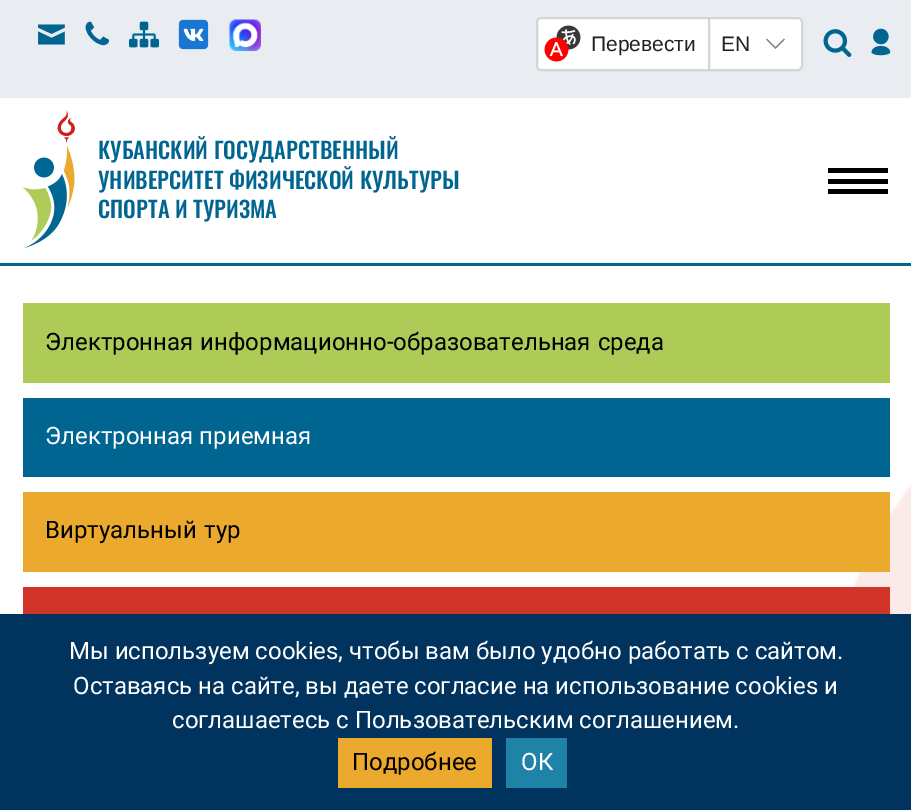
%!PS
<< /PageSize [911 810] >> setpagedevice
/rgb { 3 { 255 div 3 1 roll } repeat setrgbcolor } def
/font { [ exch dup neg 0 0 3 -1 roll 0 0 ] selectfont } def
/picture { 5 dict begin { /h /w /y /x /name } { exch def } forall
  gsave x y translate w h scale
  w h 8 [w 0 0 h 0 0] name (r) file false 3 colorimage grestore end } def
0 810 translate 1 -1 scale
4 setmiterlimit
255 255 255 rgb
0 0 911 810 rectfill
(img/1.rgb) 821 484 90 130 picture
233 236 240 rgb
0 0 911 98 rectfill
(img/2.rgb) 38 24 27 21 picture
(img/3.rgb) 85 21 25 25 picture
(img/4.rgb) 129 21 30 27 picture
(img/5.rgb) 178 19 31 31 picture
(img/6.rgb) 229 19 32 32 picture
255 255 255 rgb
541 18 moveto 709 18 lineto 709 70 lineto 541 70 lineto 539 70 537 68 537 66 curveto 537 22 lineto 537 20 539 18 541 18 curveto closepath gsave fill grestore
213 213 213 rgb
2 setlinewidth
stroke
(img/7.rgb) 544 25 37 37 picture
255 255 255 rgb
709 18 moveto 798 18 lineto 800 18 802 20 802 22 curveto 802 66 lineto 802 68 800 70 798 70 curveto 709 70 lineto closepath gsave fill grestore
213 213 213 rgb
stroke
(img/8.rgb) 766 38 19 11 picture
(img/9.rgb) 823 29 29 28 picture
(img/10.rgb) 871 28 20 28 picture
0 102 145 rgb
0 263 911 3 rectfill
(img/11.rgb) 23 110 52 139 picture
[
  [828 168 60 5 0 0 0]
  [828 179 60 5 0 0 0]
  [828 189 60 5 0 0 0]
  [23 303 867 80 174 203 87]
  [23 398 867 79 0 102 145]
  [23 492 867 80 235 169 45]
  [23 587 867 27 211 52 41]
  [0 614 911 196 0 51 94]
  [338 738 154 50 235 169 45]
  [506 738 61 50 31 131 168]
] { aload pop rgb rectfill } forall
/LiberationSans-Regular 21 font
34 34 34 rgb
591 51 moveto (Перевести) show
721 51 moveto (EN) show
/Oswald-Medium 22.5 font
0 102 145 rgb
[
  [(КУБАНСКИЙ ГОСУДАРСТВЕННЫЙ) 98 159]
  [(УНИВЕРСИТЕТ ФИЗИЧЕСКОЙ КУЛЬТУРЫ) 98 189]
  [(СПОРТА И ТУРИЗМА) 98 218]
] { aload pop moveto show } forall
/Roboto-Regular 24 font
0 0 0 rgb
45 350 moveto 1 0 32 (Электронная информационно-образовательная среда) widthshow
255 255 255 rgb
45 444 moveto (Электронная приемная) show
0 0 0 rgb
45 538 moveto 2 0 32 (Виртуальный тур) widthshow
255 255 255 rgb
[
  [(Мы используем cookies, чтобы вам было удобно работать с сайтом.) 69 659]
  [(Оставаясь на сайте, вы даете согласие на использование cookies и) 73 694]
  [(соглашаетесь с Пользовательским соглашением.) 172 728]
] { aload pop moveto show } forall
0 0 0 rgb
352 770 moveto (Подробнее) show
255 255 255 rgb
521 770 moveto (ОК) show
showpage
